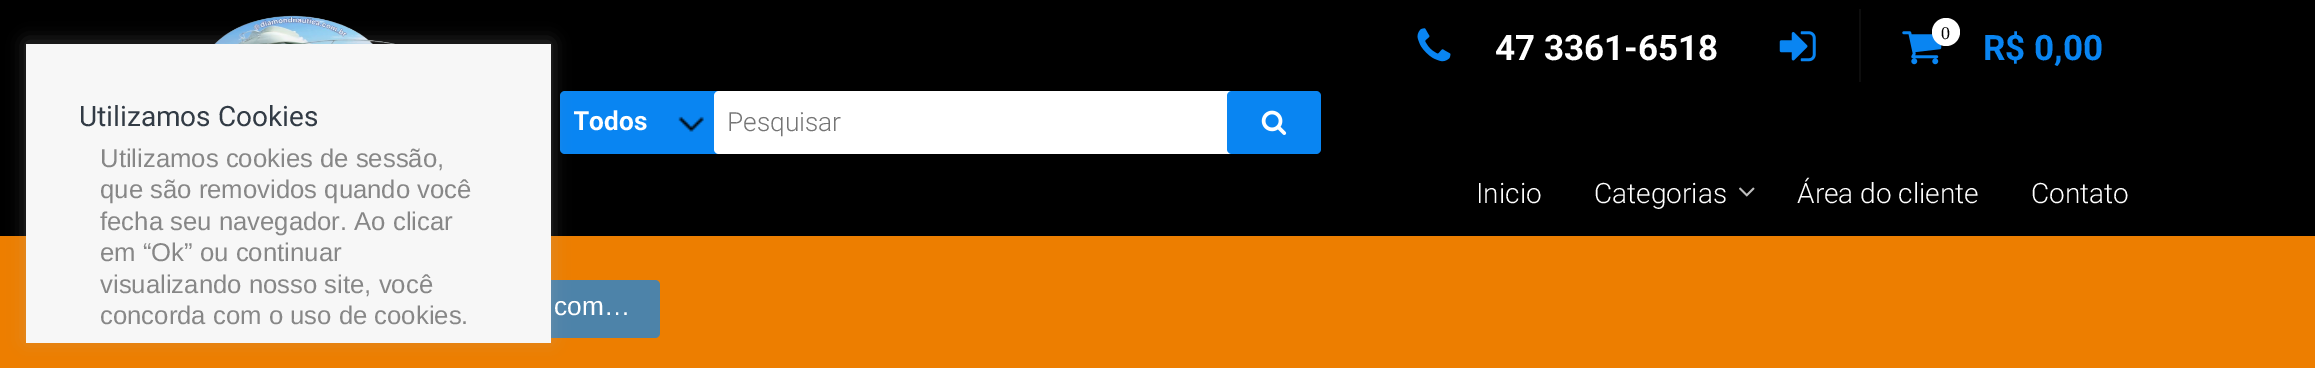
%!PS
<< /PageSize [2315 368] /PageUsesTransparency true >> setpagedevice
/rgb { 3 { 255 div 3 1 roll } repeat setrgbcolor } def
/font { [ exch dup neg 0 0 3 -1 roll 0 0 ] selectfont } def
/alpha { dup .setfillconstantalpha .setstrokeconstantalpha } def
/circle { newpath 0 360 arc closepath } def
/roundrect { 5 dict begin { /r /h /w /y /x } { exch def } forall
  x r add y moveto x w add y 2 copy h add r arct x w add y h add x 1 index r arct
  x y h add x y r arct x y 2 copy exch w add exch r arct closepath end } def
/shadow { 12 dict begin { /a /b /q /h /w /y /x } { exch def } forall gsave /was 0 def
  9 -2 -9 { dup b mul 4 div /e exch def 1 sub .425 mul 2.718 exch exp 1 add a .99 .min exch div /now exch def
    1 1 now sub 1 was sub div sub alpha /was now def
    w h .min e 2 mul add 0 gt { x e sub y e sub w e 2 mul add h e 2 mul add
      q e add b .6 mul add w h .min 2 div e add .min 0 .max roundrect fill } if } for grestore end } def
/picture { 5 dict begin { /h /w /y /x /name } { exch def } forall
  gsave x y translate w h scale
  w h 8 [w 0 0 h 0 0] name (r) file false 3 colorimage grestore end } def
0 .pushpdf14devicefilter
0 368 translate 1 -1 scale
4 setmiterlimit
237 126 0 rgb
0 0 2315 368 rectfill
0 0 0 rgb
0 0 2315 236 rectfill
(img/1.rgb) 214 15 181 29 picture
9 133 242 rgb
560 91 166 63 5 roundrect fill
77 131 169 rgb
161 280 499 58 5 roundrect fill
172 171 171 rgb
26 42 525 299 0 9 0.3 shadow
247 247 247 rgb
26 44 525 299 rectfill
(img/2.rgb) 1417 28 34 34 picture
(img/3.rgb) 1779 31 37 31 picture
13 13 13 rgb
1859 9 2 73 rectfill
(img/4.rgb) 1902 31 40 34 picture
255 255 255 rgb
1946 32 14 circle fill
(img/5.rgb) 678 116 26 16 picture
714 91 525 63 5 roundrect fill
9 133 242 rgb
1227 91 94 63 5 roundrect fill
(img/6.rgb) 1261 110 26 25 picture
(img/7.rgb) 1739 187 16 10 picture
/Roboto-Regular 28 font
50 59 69 rgb
79 126 moveto (Utilizamos Cookies) show
/LiberationSans-Regular 25.7 font
135 135 135 rgb
[
  [(Utilizamos cookies de sessão,) 100 167]
  [(que são removidos quando você) 100 198]
  [(fecha seu navegador. Ao clicar) 100 230]
  [(em “Ok” ou continuar) 100 261]
  [(visualizando nosso site, você) 100 293]
  [(concorda com o uso de cookies.) 100 324]
] { aload pop moveto show } forall
/Roboto-Bold 35 font
255 255 255 rgb
1495 60 moveto (47 3361-6518) show
/LiberationSerif-Regular 18 font
0 0 0 rgb
1941 39 moveto (0) show
/Roboto-Bold 35 font
9 133 242 rgb
1983 60 moveto (R$ 0,00) show
gsave
574 110 82 27 rectclip
/Roboto-Bold 26.25 font
255 255 255 rgb
573 130 moveto (Todos) show
grestore
/Roboto-Light 26.25 font
117 117 117 rgb
727 131 moveto (Pesquisar) show
/Roboto-Light 28 font
255 255 255 rgb
[
  [(Inicio) 1476 203]
  [(Categorias) 1594 203]
  [(Área do cliente) 1797 203]
  [(Contato) 2031 203]
] { aload pop moveto show } forall
/LiberationSans-Regular 26.25 font
554 315 moveto (com…) show
.poppdf14devicefilter showpage
